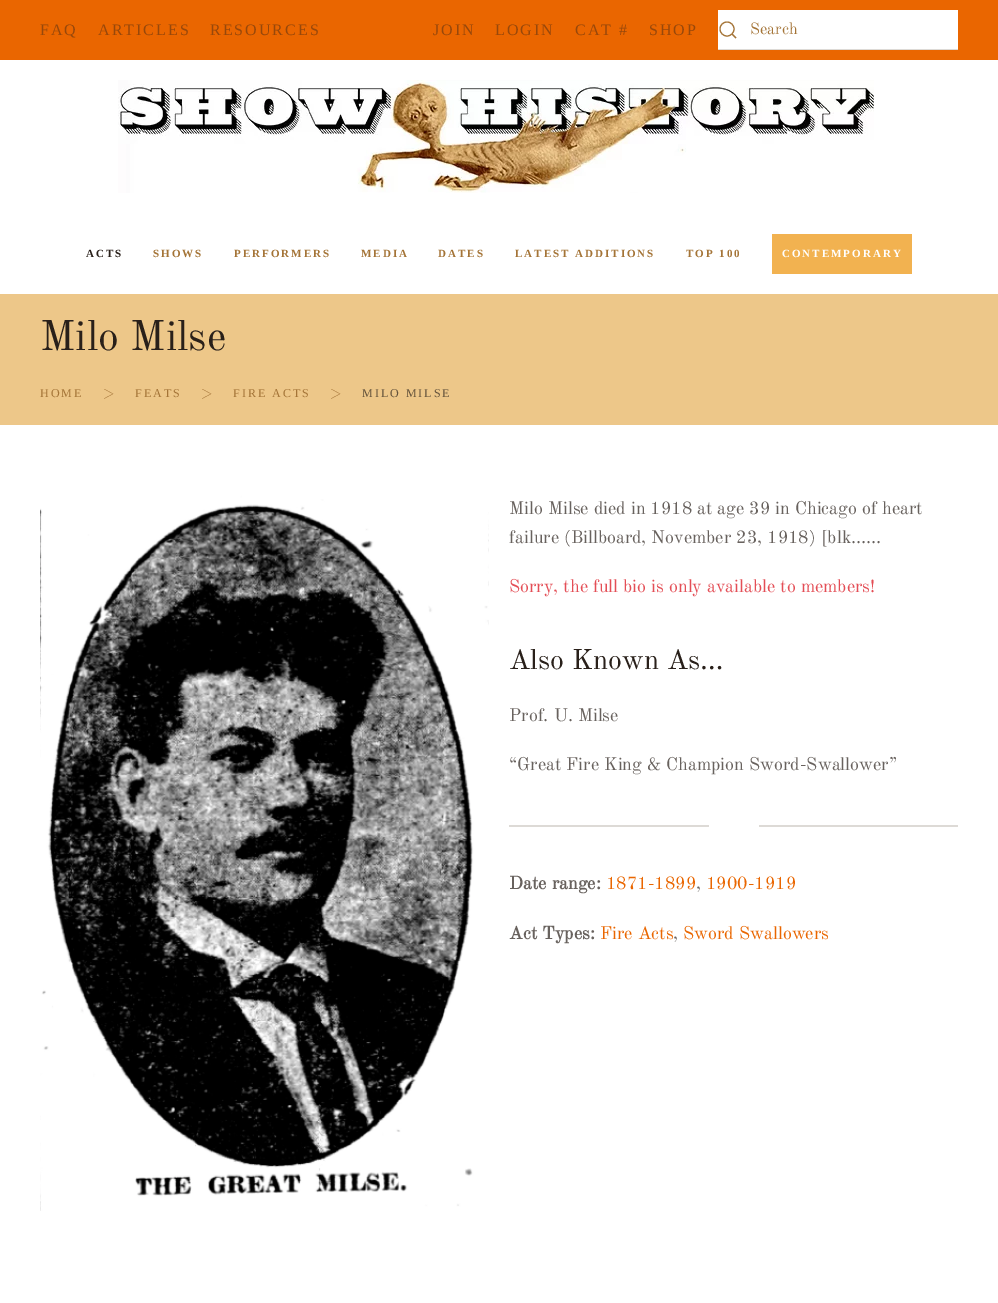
%!PS
<< /PageSize [998 1303] >> setpagedevice
/rgb { 3 { 255 div 3 1 roll } repeat setrgbcolor } def
/font { [ exch dup neg 0 0 3 -1 roll 0 0 ] selectfont } def
/circle { newpath 0 360 arc closepath } def
/picture { 5 dict begin { /h /w /y /x /name } { exch def } forall
  gsave x y translate w h scale
  w h 8 [w 0 0 h 0 0] name (r) file false 3 colorimage grestore end } def
0 1303 translate 1 -1 scale
4 setmiterlimit
255 255 255 rgb
0 0 998 1303 rectfill
234 102 0 rgb
0 0 998 60 rectfill
255 255 255 rgb
718 10 240 39 rectfill
164 116 55 rgb
1.1 setlinewidth
727 29 7 circle stroke
732 34 moveto 736 38 lineto closepath stroke
221 218 214 rgb
718 49 240 1 rectfill
(img/1.rgb) 118 80 756 113 picture
242 178 80 rgb
772 234 140 40 rectfill
237 199 137 rgb
0 294 998 131 rectfill
(img/2.rgb) 40 495 449 716 picture
221 218 214 rgb
509 825 200 2 rectfill
759 825 199 2 rectfill
/LiberationSerif-Regular 16 font
151 72 11 rgb
40 35 moveto 2 0 (FAQ) ashow
98 35 moveto 2 0 (ARTICLES) ashow
210 35 moveto 2 0 (RESOURCES) ashow
433 35 moveto 2 0 (JOIN) ashow
495 35 moveto 2 0 (LOGIN) ashow
575 35 moveto 2 0 (CAT #) ashow
649 35 moveto 2 0 (SHOP) ashow
/OldStandardTT-Regular 16 font
164 116 55 rgb
750 34 moveto (Search) show
/LiberationSerif-Bold 11 font
41 32 26 rgb
86 257 moveto 2 0 (ACTS) ashow
164 116 55 rgb
153 257 moveto 2 0 (SHOWS) ashow
234 257 moveto 2 0 (PERFORMERS) ashow
361 257 moveto 2 0 (MEDIA) ashow
438 257 moveto 2 0 (DATES) ashow
515 257 moveto 2 0 (LATEST ADDITIONS) ashow
686 257 moveto 2 0 (TOP 100) ashow
255 255 255 rgb
782 257 moveto 2 0 (CONTEMPORARY) ashow
/OldStandardTT-Regular 42 font
41 32 26 rgb
40 350 moveto (Milo Milse) show
/LiberationSerif-Regular 12 font
164 116 55 rgb
40 397 moveto 2 0 (HOME) ashow
/OldStandardTT-Regular 12 font
103 397 moveto (>) show
/LiberationSerif-Regular 12 font
135 397 moveto 2 0 (FEATS) ashow
/OldStandardTT-Regular 12 font
201 397 moveto (>) show
/LiberationSerif-Regular 12 font
233 397 moveto 2 0 (FIRE ACTS) ashow
/OldStandardTT-Regular 12 font
330 397 moveto (>) show
/LiberationSerif-Regular 12 font
99 82 59 rgb
362 397 moveto 2 0 (MILO MILSE) ashow
/OldStandardTT-Regular 18 font
104 98 94 rgb
509 514 moveto (Milo Milse died in 1918 at age 39 in Chicago of heart) show
509 543 moveto (failure \(Billboard, November 23, 1918\) [blk……) show
228 78 86 rgb
509 592 moveto (Sorry, the full bio is only available to members!) show
/OldStandardTT-Regular 28 font
41 32 26 rgb
509 669 moveto (Also Known As…) show
/OldStandardTT-Regular 18 font
104 98 94 rgb
509 721 moveto (Prof. U. Milse) show
509 770 moveto (“Great Fire King & Champion Sword-Swallower”) show
/OldStandardTT-Bold 18 font
509 889 moveto (Date range:) show
/OldStandardTT-Regular 18 font
234 102 0 rgb
606 889 moveto (1871-1899) show
104 98 94 rgb
696 889 moveto (,) show
234 102 0 rgb
706 889 moveto (1900-1919) show
/OldStandardTT-Bold 18 font
104 98 94 rgb
509 939 moveto (Act Types:) show
/OldStandardTT-Regular 18 font
234 102 0 rgb
600 939 moveto (Fire Acts) show
104 98 94 rgb
673 939 moveto (,) show
234 102 0 rgb
683 939 moveto (Sword Swallowers) show
showpage
